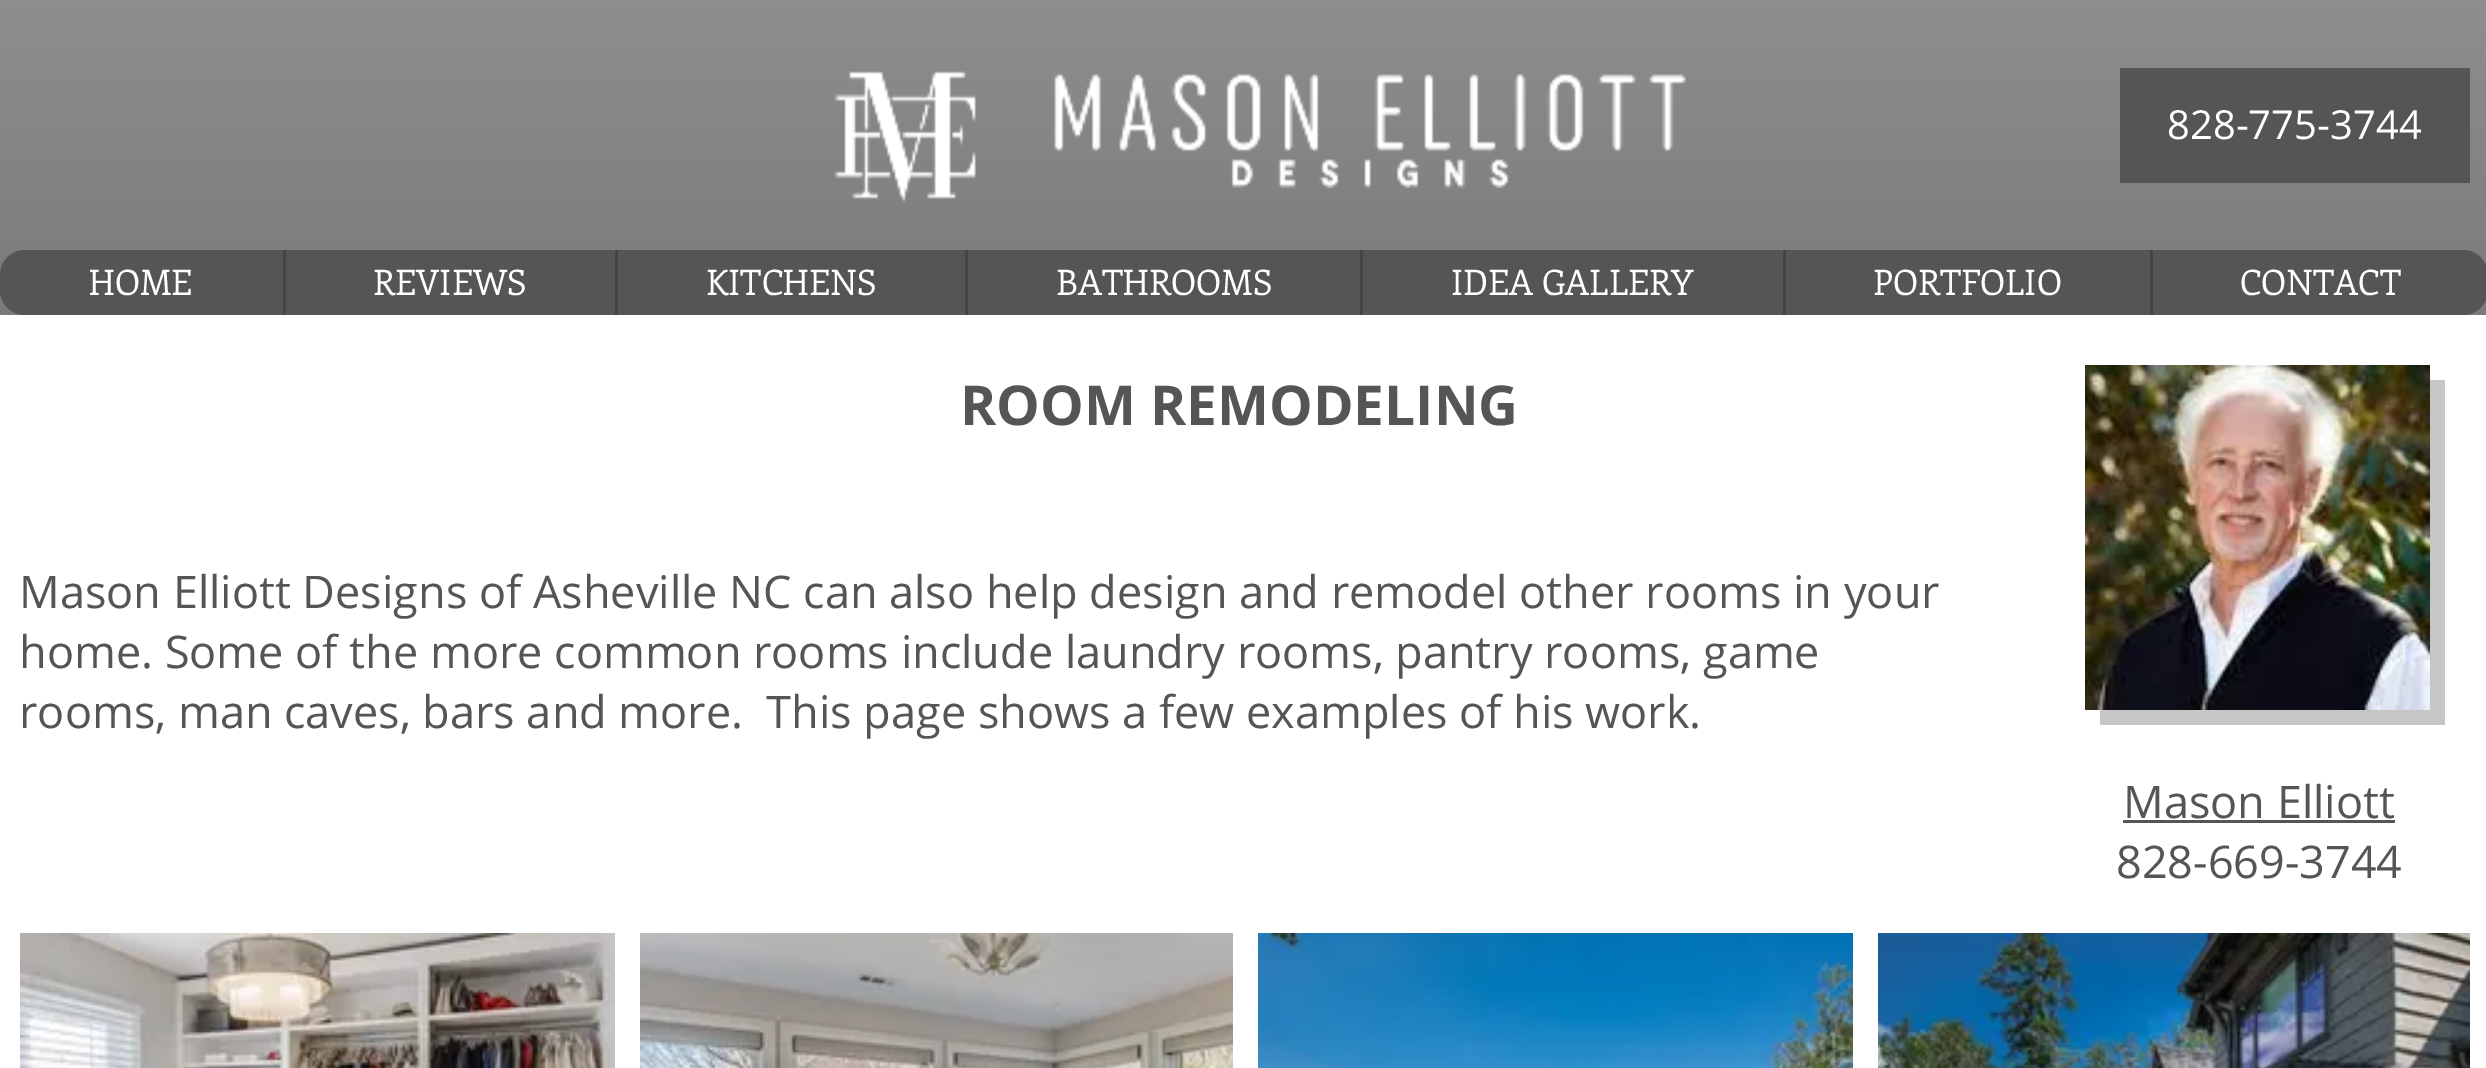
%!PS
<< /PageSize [2486 1068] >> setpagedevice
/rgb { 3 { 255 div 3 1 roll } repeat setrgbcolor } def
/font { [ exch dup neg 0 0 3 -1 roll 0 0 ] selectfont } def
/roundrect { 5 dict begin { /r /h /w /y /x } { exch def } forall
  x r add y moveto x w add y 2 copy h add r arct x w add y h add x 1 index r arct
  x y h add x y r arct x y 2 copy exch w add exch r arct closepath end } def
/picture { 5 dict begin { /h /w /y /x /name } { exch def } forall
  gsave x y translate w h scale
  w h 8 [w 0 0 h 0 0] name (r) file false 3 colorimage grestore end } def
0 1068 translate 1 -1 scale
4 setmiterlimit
255 255 255 rgb
0 0 2486 1068 rectfill
102 102 102 rgb
0 0 2486 315 rectfill
(img/1.rgb) 0 0 2486 315 picture
(img/2.rgb) 834 71 852 132 picture
85 85 85 rgb
2120 68 350 115 rectfill
0 250 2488 65 25 roundrect fill
[
  [283 250 3 65 68 68 68]
  [615 250 3 65 68 68 68]
  [965 250 3 65 68 68 68]
  [1360 250 3 65 68 68 68]
  [1783 250 3 65 68 68 68]
  [2150 250 3 65 68 68 68]
] { aload pop rgb rectfill } forall
198 198 198 rgb
2100 710 moveto 2100 725 lineto 2445 725 lineto 2445 380 lineto 2430 380 lineto 2430 710 lineto closepath fill
(img/3.rgb) 2085 365 345 345 picture
85 85 85 rgb
2123 820 272 3 rectfill
(img/4.rgb) 20 933 595 135 picture
(img/5.rgb) 640 933 593 135 picture
(img/6.rgb) 1258 933 595 135 picture
(img/7.rgb) 1878 933 592 135 picture
/OpenSans-Regular 40 font
255 255 255 rgb
2167 139 moveto (828-775-3744) show
/Enriqueta-Regular 35 font
[
  [(HOME) 89 295]
  [(REVIEWS) 373 295]
  [(KITCHENS) 706 295]
  [(BATHROOMS) 1056 295]
  [(IDEA GALLERY) 1451 295]
  [(PORTFOLIO) 1873 295]
  [(CONTACT) 2240 295]
] { aload pop moveto show } forall
/OpenSans-Bold 55 font
85 85 85 rgb
960 425 moveto (ROOM REMODELING) show
/OpenSans-Regular 45 font
[
  [(Mason Elliott Designs of Asheville NC can also help design and remodel other rooms in your) 19 608]
  [(home. Some of the more common rooms include laundry rooms, pantry rooms, game) 19 668]
  [(rooms, man caves, bars and more.  This page shows a few examples of his work.) 19 728]
  [(Mason Elliott) 2123 818]
  [(828-669-3744) 2116 878]
] { aload pop moveto show } forall
showpage
